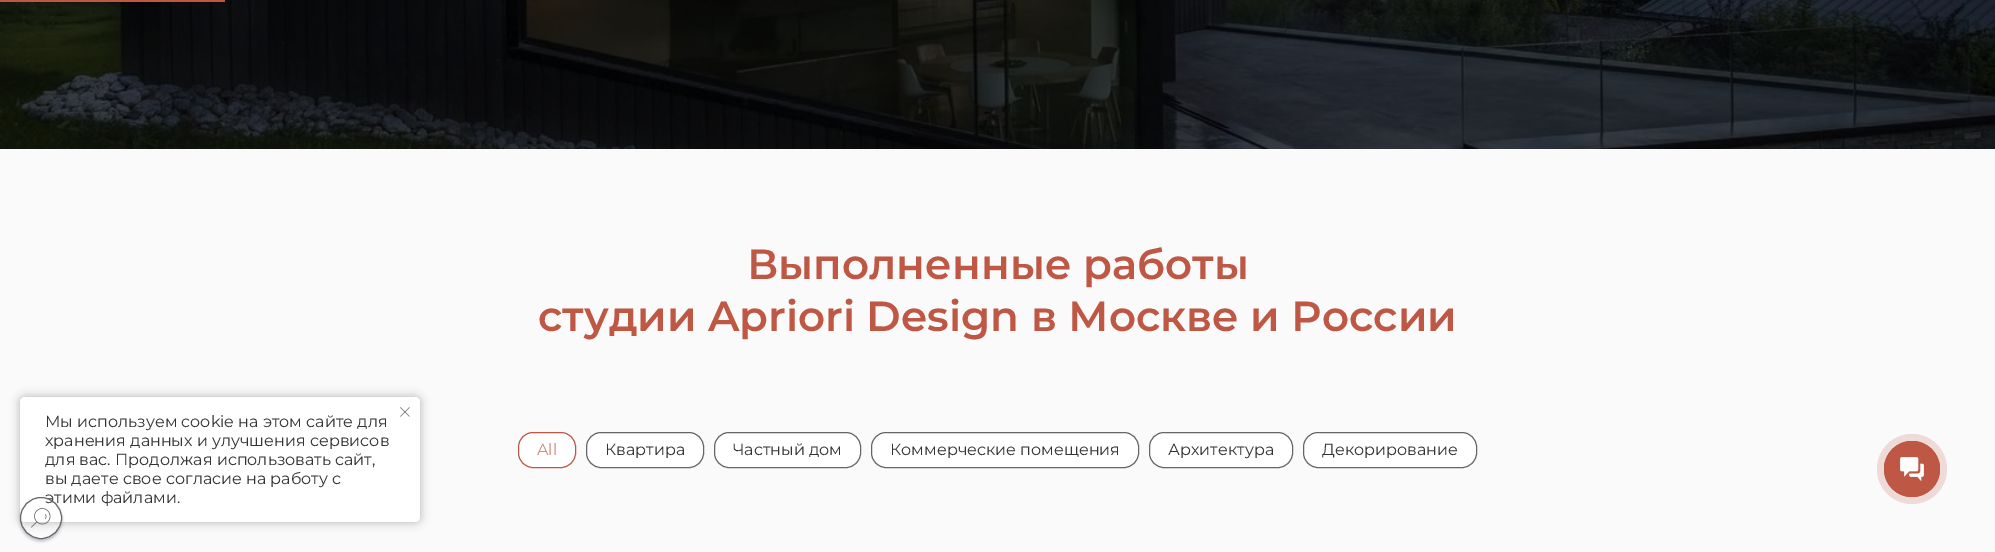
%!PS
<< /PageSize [1995 552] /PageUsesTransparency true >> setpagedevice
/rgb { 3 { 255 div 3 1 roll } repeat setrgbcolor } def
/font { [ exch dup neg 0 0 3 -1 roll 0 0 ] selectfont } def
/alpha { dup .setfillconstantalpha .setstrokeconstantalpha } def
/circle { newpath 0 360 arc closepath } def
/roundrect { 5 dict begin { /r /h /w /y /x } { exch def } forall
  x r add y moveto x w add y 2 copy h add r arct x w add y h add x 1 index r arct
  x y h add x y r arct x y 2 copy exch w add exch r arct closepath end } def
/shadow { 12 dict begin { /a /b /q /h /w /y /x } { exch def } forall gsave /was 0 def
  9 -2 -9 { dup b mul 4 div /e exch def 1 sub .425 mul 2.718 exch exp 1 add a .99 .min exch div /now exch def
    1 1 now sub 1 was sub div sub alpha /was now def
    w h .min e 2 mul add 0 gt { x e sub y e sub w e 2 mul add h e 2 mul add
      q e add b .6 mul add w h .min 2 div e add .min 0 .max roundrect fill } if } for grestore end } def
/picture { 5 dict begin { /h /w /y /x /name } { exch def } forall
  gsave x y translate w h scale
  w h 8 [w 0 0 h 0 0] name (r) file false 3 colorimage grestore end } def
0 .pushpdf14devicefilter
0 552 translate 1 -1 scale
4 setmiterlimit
250 250 250 rgb
0 0 1995 552 rectfill
(img/1.rgb) 0 0 1995 149 picture
190 88 69 rgb
0 0 225 2 rectfill
0 0 0 rgb
20 397 400 125 5 5 0.3 shadow
255 255 255 rgb
20 397 400 125 5 roundrect fill
(img/2.rgb) 400 407 10 10 picture
gsave
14 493 moveto 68 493 lineto 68 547 lineto 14 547 lineto closepath 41 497 moveto 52.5 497 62 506.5 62 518 curveto 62 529.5 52.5 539 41 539 curveto 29.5 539 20 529.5 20 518 curveto 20 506.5 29.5 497 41 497 curveto closepath eoclip newpath
0 11 48 rgb
20 499 42 42 21 1.5 0.25 shadow
grestore
518.5 432.5 57 35 14.5 roundrect gsave fill grestore
190 88 69 rgb
stroke
255 255 255 rgb
586.5 432.5 117 35 14.5 roundrect gsave fill grestore
102 102 102 rgb
stroke
255 255 255 rgb
714.5 432.5 146 35 14.5 roundrect gsave fill grestore
102 102 102 rgb
stroke
255 255 255 rgb
871.5 432.5 267 35 14.5 roundrect gsave fill grestore
102 102 102 rgb
stroke
255 255 255 rgb
1149.5 432.5 143 35 14.5 roundrect gsave fill grestore
102 102 102 rgb
stroke
255 255 255 rgb
1303.5 432.5 173 35 14.5 roundrect gsave fill grestore
102 102 102 rgb
stroke
238 218 214 rgb
1912 469 35 circle fill
190 88 69 rgb
0.8 setlinewidth
1912 469 27.6 circle stroke
1912 469 28 circle fill
(img/4.rgb) 1900 457 24 24 picture
/Montserrat-Regular 16 font
51 51 51 rgb
[
  [(Мы используем cookie на этом сайте для) 45 427]
  [(хранения данных и улучшения сервисов) 45 446]
  [(для вас. Продолжая использовать сайт,) 45 465]
  [(вы даете свое согласие на работу с) 45 484]
  [(этими файлами.) 45 503]
] { aload pop moveto show } forall
102 102 102 rgb
1 setlinewidth
41 518 20.5 circle stroke
(img/3.rgb) 31 508 20 20 picture
/Montserrat-SemiBold 42 font
190 88 69 rgb
747 279 moveto (Выполненные работы) show
538 331 moveto (студии Apriori Design в Москве и России) show
/Montserrat-Regular 16 font
210 138 125 rgb
537 455 moveto (All) show
51 51 51 rgb
[
  [(Квартира) 605 455]
  [(Частный дом) 733 455]
  [(Коммерческие помещения) 890 455]
  [(Архитектура) 1168 455]
  [(Декорирование) 1322 455]
] { aload pop moveto show } forall
.poppdf14devicefilter showpage
